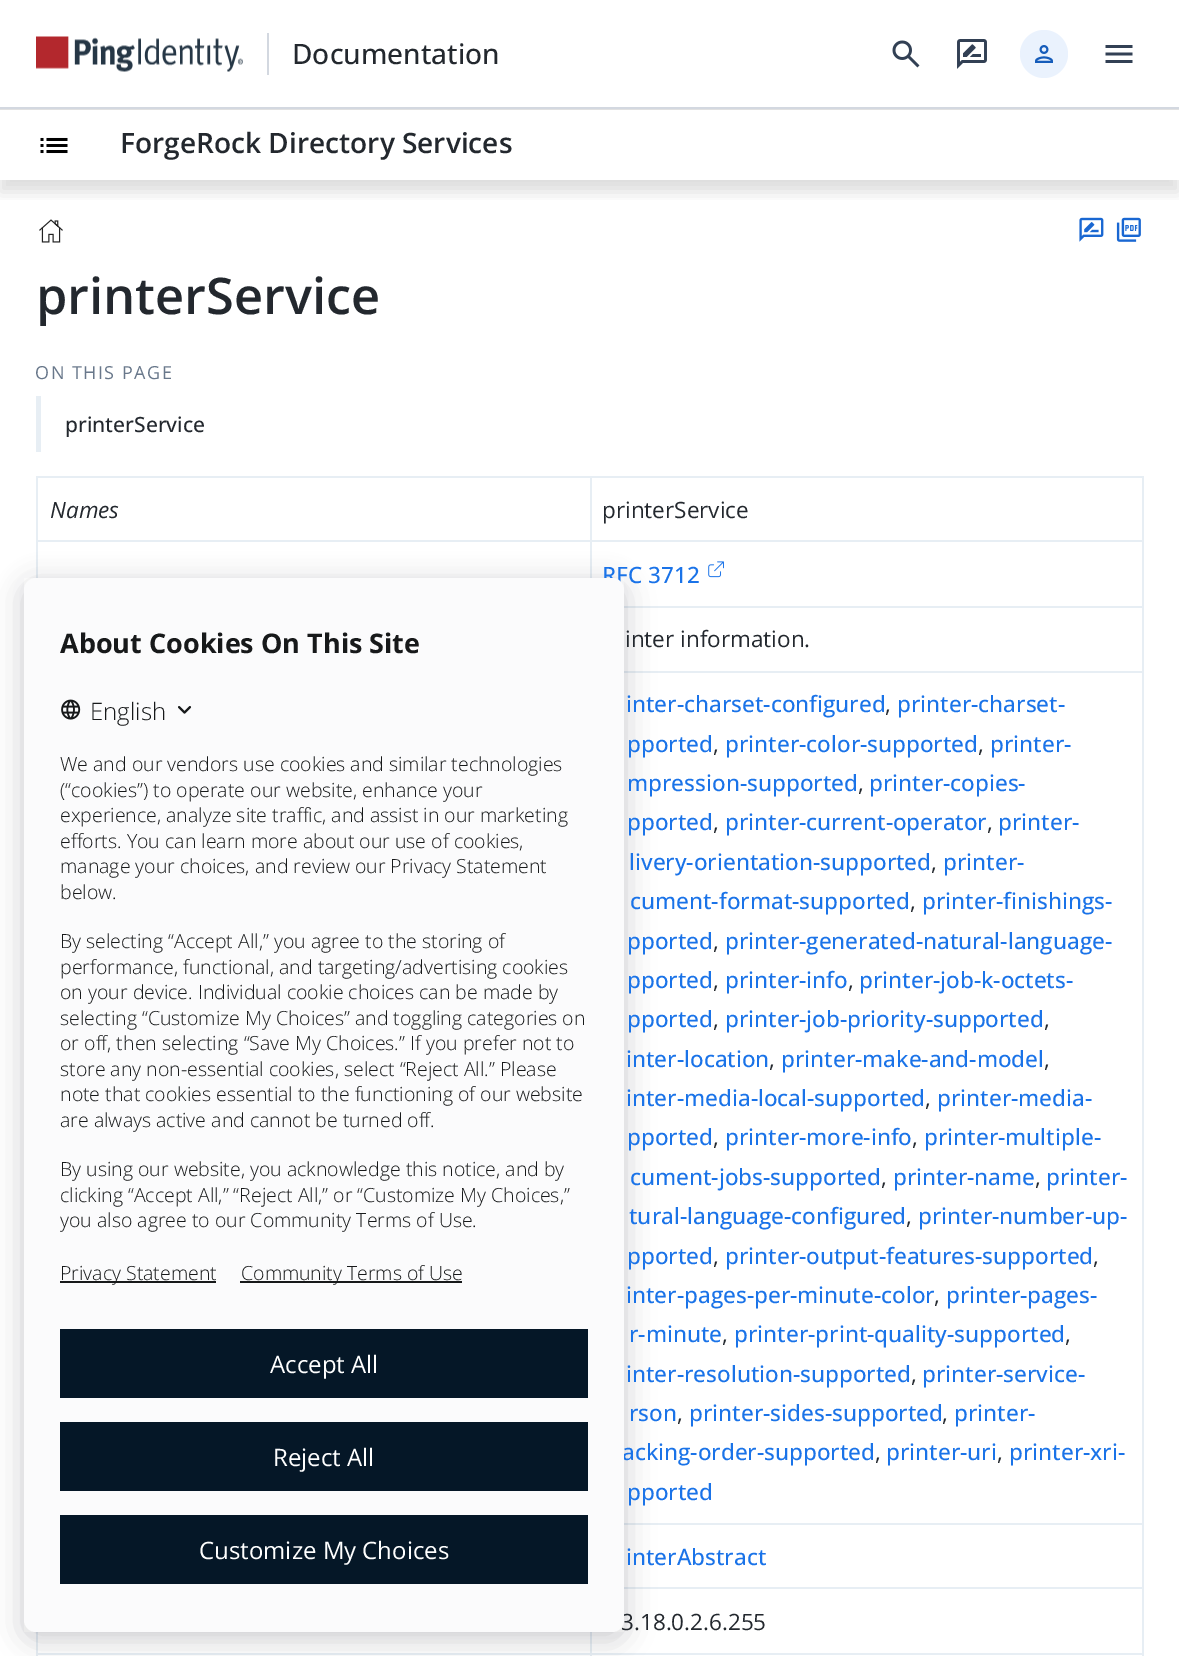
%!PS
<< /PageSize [1179 1656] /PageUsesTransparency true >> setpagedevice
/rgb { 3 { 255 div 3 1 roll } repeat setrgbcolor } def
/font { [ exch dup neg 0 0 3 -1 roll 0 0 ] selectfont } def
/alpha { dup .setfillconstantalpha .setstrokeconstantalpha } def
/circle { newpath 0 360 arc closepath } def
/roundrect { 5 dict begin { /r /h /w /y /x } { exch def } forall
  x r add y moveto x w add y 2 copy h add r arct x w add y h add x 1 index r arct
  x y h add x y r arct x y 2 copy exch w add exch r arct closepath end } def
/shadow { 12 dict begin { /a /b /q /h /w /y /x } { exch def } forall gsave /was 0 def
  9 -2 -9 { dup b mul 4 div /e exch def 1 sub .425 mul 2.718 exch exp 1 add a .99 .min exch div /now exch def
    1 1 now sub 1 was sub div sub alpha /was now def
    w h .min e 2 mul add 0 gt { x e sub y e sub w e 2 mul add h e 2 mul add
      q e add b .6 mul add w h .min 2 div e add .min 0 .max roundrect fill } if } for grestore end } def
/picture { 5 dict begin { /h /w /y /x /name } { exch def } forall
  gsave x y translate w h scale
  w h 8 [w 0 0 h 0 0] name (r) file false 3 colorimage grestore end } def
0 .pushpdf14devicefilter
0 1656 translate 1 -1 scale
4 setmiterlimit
255 255 255 rgb
0 0 1179 1656 rectfill
gsave
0 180 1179 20 rectclip
0 0 0 rgb
0 120 1179 72 0 8 0.13 shadow
grestore
211 216 224 rgb
0 107 1179 2 rectfill
(img/1.rgb) 36 36 207 36 picture
267 33 2 42 rectfill
(img/2.rgb) 892 40 28 28 picture
(img/3.rgb) 957 39 30 30 picture
234 242 253 rgb
1044 54 24 circle fill
(img/4.rgb) 1035 45 18 18 picture
(img/5.rgb) 1105 45 28 18 picture
225 225 225 rgb
0 109 1179 1 rectfill
(img/6.rgb) 40 137 28 17 picture
(img/7.rgb) 39 219 24 24 picture
(img/8.rgb) 1079 217 25 25 picture
(img/9.rgb) 1116 217 25 25 picture
[
  [36 396 5 56 231 238 244]
  [590 476 553 2 231 238 244]
  [590 540 553 2 231 238 244]
  [590 540 2 38 231 238 244]
  [36 540 555 2 231 238 244]
  [590 476 2 66 231 238 244]
  [36 476 555 2 231 238 244]
  [36 540 2 38 231 238 244]
  [36 476 2 66 231 238 244]
  [624 606 519 2 231 238 244]
  [624 671 519 2 231 238 244]
  [624 1523 519 2 231 238 244]
  [624 1587 519 2 231 238 244]
  [590 1653 553 2 231 238 244]
  [1142 1653 2 3 231 238 244]
  [1142 1587 2 68 231 238 244]
  [1142 1523 2 66 231 238 244]
  [1142 671 2 853 231 238 244]
  [1142 606 2 66 231 238 244]
  [1142 540 2 68 231 238 244]
  [1142 476 2 66 231 238 244]
] { aload pop rgb rectfill } forall
(img/10.rgb) 708 561 16 17 picture
[
  [590 1653 2 3 231 238 244]
  [36 1653 555 2 231 238 244]
  [590 1632 2 23 231 238 244]
  [36 1632 2 24 231 238 244]
] { aload pop rgb rectfill } forall
gsave
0 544 moveto 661 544 lineto 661 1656 lineto 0 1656 lineto closepath 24 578 moveto 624 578 lineto 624 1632 lineto 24 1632 lineto closepath eoclip newpath
1 1 63 rgb
30 587 588 1042 0 14 0.1 shadow
grestore
0 0 0 rgb
24 585 600 1055 12 15 0.15 shadow
/OpenSans-Medium 28.1 font
35 40 46 rgb
292 64 moveto (Documentation) show
/OpenSans-SemiBold 28.1 font
120 153 moveto (ForgeRock Directory Services) show
/OpenSans-SemiBold 50.5 font
36 314 moveto (printerService) show
/OpenSans-Regular 18 font
105 120 139 rgb
35 379 moveto 1.5 0 (ON THIS PAGE) ashow
/OpenSans-Medium 21 font
35 40 46 rgb
65 432 moveto (printerService) show
/OpenSans-Italic 22.5 font
50 518 moveto (Names) show
/OpenSans-Regular 22.5 font
602 518 moveto (printerService) show
/OpenSans-Medium 22.5 font
26 115 232 rgb
602 583 moveto (RFC 3712) show
/OpenSans-Regular 22.5 font
35 40 46 rgb
625 647 moveto (inter information.) show
/OpenSans-Medium 22.5 font
26 115 232 rgb
626 712 moveto (inter-charset-configured) show
/OpenSans-Regular 22.5 font
35 40 46 rgb
885 712 moveto (,) show
/OpenSans-Medium 22.5 font
26 115 232 rgb
897 712 moveto (printer-charset-) show
627 752 moveto (pported) show
/OpenSans-Regular 22.5 font
35 40 46 rgb
713 752 moveto (,) show
/OpenSans-Medium 22.5 font
26 115 232 rgb
725 752 moveto (printer-color-supported) show
/OpenSans-Regular 22.5 font
35 40 46 rgb
978 752 moveto (,) show
/OpenSans-Medium 22.5 font
26 115 232 rgb
990 752 moveto (printer-) show
627 791 moveto (mpression-supported) show
/OpenSans-Regular 22.5 font
35 40 46 rgb
858 791 moveto (,) show
/OpenSans-Medium 22.5 font
26 115 232 rgb
869 791 moveto (printer-copies-) show
627 830 moveto (pported) show
/OpenSans-Regular 22.5 font
35 40 46 rgb
713 830 moveto (,) show
/OpenSans-Medium 22.5 font
26 115 232 rgb
725 830 moveto (printer-current-operator) show
/OpenSans-Regular 22.5 font
35 40 46 rgb
987 830 moveto (,) show
/OpenSans-Medium 22.5 font
26 115 232 rgb
998 830 moveto (printer-) show
629 870 moveto (livery-orientation-supported) show
/OpenSans-Regular 22.5 font
35 40 46 rgb
931 870 moveto (,) show
/OpenSans-Medium 22.5 font
26 115 232 rgb
943 870 moveto (printer-) show
630 909 moveto (cument-format-supported) show
/OpenSans-Regular 22.5 font
35 40 46 rgb
910 909 moveto (,) show
/OpenSans-Medium 22.5 font
26 115 232 rgb
922 909 moveto (printer-finishings-) show
627 949 moveto (pported) show
/OpenSans-Regular 22.5 font
35 40 46 rgb
713 949 moveto (,) show
/OpenSans-Medium 22.5 font
26 115 232 rgb
725 949 moveto (printer-generated-natural-language-) show
627 988 moveto (pported) show
/OpenSans-Regular 22.5 font
35 40 46 rgb
713 988 moveto (,) show
/OpenSans-Medium 22.5 font
26 115 232 rgb
725 988 moveto (printer-info) show
/OpenSans-Regular 22.5 font
35 40 46 rgb
848 988 moveto (,) show
/OpenSans-Medium 22.5 font
26 115 232 rgb
859 988 moveto (printer-job-k-octets-) show
627 1027 moveto (pported) show
/OpenSans-Regular 22.5 font
35 40 46 rgb
713 1027 moveto (,) show
/OpenSans-Medium 22.5 font
26 115 232 rgb
725 1027 moveto (printer-job-priority-supported) show
/OpenSans-Regular 22.5 font
35 40 46 rgb
1044 1027 moveto (,) show
/OpenSans-Medium 22.5 font
26 115 232 rgb
626 1067 moveto (inter-location) show
/OpenSans-Regular 22.5 font
35 40 46 rgb
769 1067 moveto (,) show
/OpenSans-Medium 22.5 font
26 115 232 rgb
781 1067 moveto (printer-make-and-model) show
/OpenSans-Regular 22.5 font
35 40 46 rgb
1044 1067 moveto (,) show
/OpenSans-Medium 22.5 font
26 115 232 rgb
626 1106 moveto (inter-media-local-supported) show
/OpenSans-Regular 22.5 font
35 40 46 rgb
925 1106 moveto (,) show
/OpenSans-Medium 22.5 font
26 115 232 rgb
937 1106 moveto (printer-media-) show
627 1145 moveto (pported) show
/OpenSans-Regular 22.5 font
35 40 46 rgb
713 1145 moveto (,) show
/OpenSans-Medium 22.5 font
26 115 232 rgb
725 1145 moveto (printer-more-info) show
/OpenSans-Regular 22.5 font
35 40 46 rgb
912 1145 moveto (,) show
/OpenSans-Medium 22.5 font
26 115 232 rgb
924 1145 moveto (printer-multiple-) show
630 1185 moveto (cument-jobs-supported) show
/OpenSans-Regular 22.5 font
35 40 46 rgb
881 1185 moveto (,) show
/OpenSans-Medium 22.5 font
26 115 232 rgb
893 1185 moveto (printer-name) show
/OpenSans-Regular 22.5 font
35 40 46 rgb
1035 1185 moveto (,) show
/OpenSans-Medium 22.5 font
26 115 232 rgb
1046 1185 moveto (printer-) show
629 1224 moveto (tural-language-configured) show
/OpenSans-Regular 22.5 font
35 40 46 rgb
906 1224 moveto (,) show
/OpenSans-Medium 22.5 font
26 115 232 rgb
918 1224 moveto (printer-number-up-) show
627 1264 moveto (pported) show
/OpenSans-Regular 22.5 font
35 40 46 rgb
713 1264 moveto (,) show
/OpenSans-Medium 22.5 font
26 115 232 rgb
725 1264 moveto (printer-output-features-supported) show
/OpenSans-Regular 22.5 font
35 40 46 rgb
1093 1264 moveto (,) show
/OpenSans-Medium 22.5 font
26 115 232 rgb
626 1303 moveto (inter-pages-per-minute-color) show
/OpenSans-Regular 22.5 font
35 40 46 rgb
934 1303 moveto (,) show
/OpenSans-Medium 22.5 font
26 115 232 rgb
946 1303 moveto (printer-pages-) show
629 1342 moveto (r-minute) show
/OpenSans-Regular 22.5 font
35 40 46 rgb
722 1342 moveto (,) show
/OpenSans-Medium 22.5 font
26 115 232 rgb
734 1342 moveto (printer-print-quality-supported) show
/OpenSans-Regular 22.5 font
35 40 46 rgb
1065 1342 moveto (,) show
/OpenSans-Medium 22.5 font
26 115 232 rgb
626 1382 moveto (inter-resolution-supported) show
/OpenSans-Regular 22.5 font
35 40 46 rgb
911 1382 moveto (,) show
/OpenSans-Medium 22.5 font
26 115 232 rgb
922 1382 moveto (printer-service-) show
629 1421 moveto (rson) show
/OpenSans-Regular 22.5 font
35 40 46 rgb
677 1421 moveto (,) show
/OpenSans-Medium 22.5 font
26 115 232 rgb
689 1421 moveto (printer-sides-supported) show
/OpenSans-Regular 22.5 font
35 40 46 rgb
942 1421 moveto (,) show
/OpenSans-Medium 22.5 font
26 115 232 rgb
954 1421 moveto (printer-) show
622 1460 moveto (acking-order-supported) show
/OpenSans-Regular 22.5 font
35 40 46 rgb
875 1460 moveto (,) show
/OpenSans-Medium 22.5 font
26 115 232 rgb
886 1460 moveto (printer-uri) show
/OpenSans-Regular 22.5 font
35 40 46 rgb
997 1460 moveto (,) show
/OpenSans-Medium 22.5 font
26 115 232 rgb
[
  [(printer-xri-) 1009 1460]
  [(pported) 627 1500]
  [(interAbstract) 626 1565]
] { aload pop moveto show } forall
/OpenSans-Regular 22.5 font
35 40 46 rgb
621 1630 moveto (3.18.0.2.6.255) show
251 251 252 rgb
24 578 600 1054 12 roundrect fill
/OpenSans-Bold 27 font
23 25 26 rgb
60 653 moveto (About Cookies On This Site) show
(img/11.rgb) 61 699 20 21 picture
/OpenSans-Light 24 font
90 720 moveto (English) show
(img/12.rgb) 178 706 14 8 picture
/OpenSans-Light 19.5 font
[
  [(We and our vendors use cookies and similar technologies) 60 771]
  [(\(“cookies”\) to operate our website, enhance your) 60 797]
  [(experience, analyze site traffic, and assist in our marketing) 60 822]
  [(efforts. You can learn more about our use of cookies,) 60 848]
  [(manage your choices, and review our Privacy Statement) 60 873]
  [(below.) 60 899]
  [(By selecting “Accept All,” you agree to the storing of) 60 948]
  [(performance, functional, and targeting/advertising cookies) 60 974]
  [(on your device. Individual cookie choices can be made by) 60 999]
  [(selecting “Customize My Choices” and toggling categories on) 60 1025]
  [(or off, then selecting “Save My Choices.” If you prefer not to) 60 1050]
  [(store any non-essential cookies, select “Reject All.” Please) 60 1076]
  [(note that cookies essential to the functioning of our website) 60 1101]
  [(are always active and cannot be turned off.) 60 1127]
  [(By using our website, you acknowledge this notice, and by) 60 1176]
  [(clicking “Accept All,” “Reject All,” or “Customize My Choices,”) 60 1202]
  [(you also agree to our Community Terms of Use.) 60 1227]
] { aload pop moveto show } forall
60 1281 156 2 rectfill
60 1280 moveto (Privacy Statement) show
240 1281 222 2 rectfill
241 1280 moveto (Community Terms of Use) show
5 23 39 rgb
60 1329 528 69 rectfill
/OpenSans-Regular 24 font
255 255 255 rgb
270 1373 moveto (Accept All) show
5 23 39 rgb
60 1422 528 69 rectfill
255 255 255 rgb
273 1466 moveto (Reject All) show
5 23 39 rgb
60 1515 528 69 rectfill
255 255 255 rgb
199 1559 moveto (Customize My Choices) show
.poppdf14devicefilter showpage
